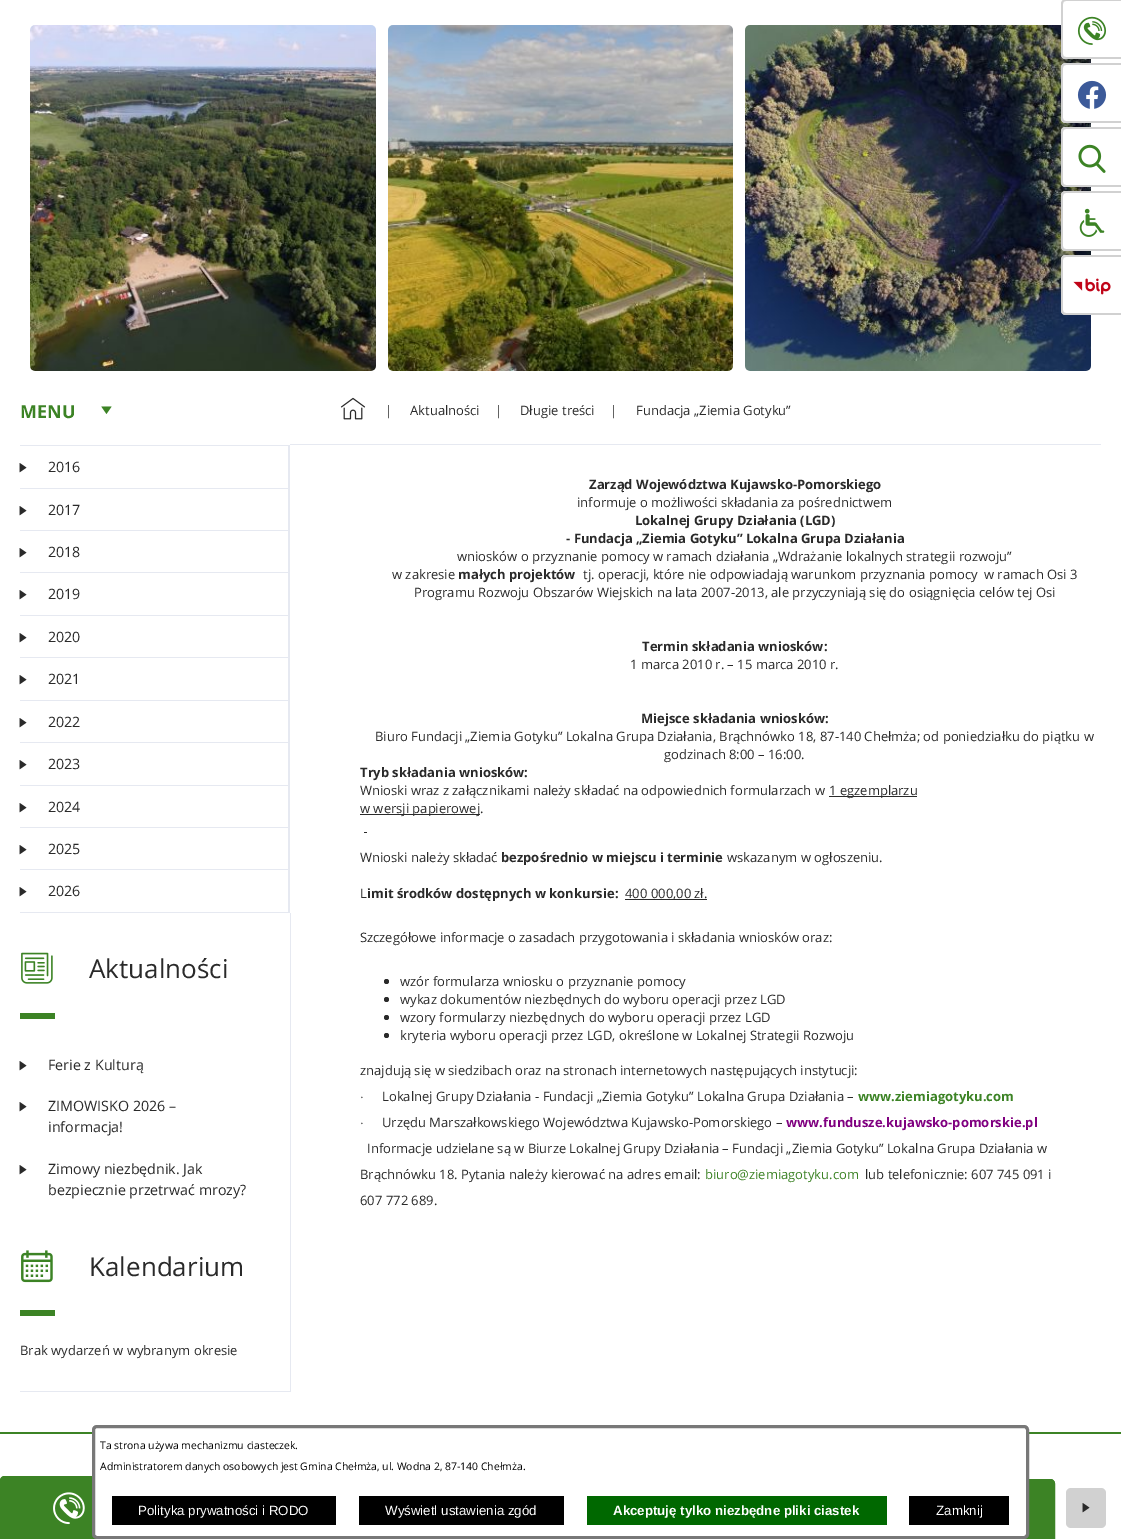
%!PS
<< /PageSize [1121 1539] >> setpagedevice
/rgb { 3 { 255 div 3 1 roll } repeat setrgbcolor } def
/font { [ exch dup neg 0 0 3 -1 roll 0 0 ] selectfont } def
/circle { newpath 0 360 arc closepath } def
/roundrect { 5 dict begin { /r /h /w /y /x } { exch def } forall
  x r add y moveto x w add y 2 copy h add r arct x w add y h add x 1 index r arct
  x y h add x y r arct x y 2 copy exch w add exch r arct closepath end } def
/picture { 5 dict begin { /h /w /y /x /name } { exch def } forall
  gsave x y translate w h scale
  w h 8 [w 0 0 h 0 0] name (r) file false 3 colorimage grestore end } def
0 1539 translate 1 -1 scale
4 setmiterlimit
255 255 255 rgb
0 0 1121 1539 rectfill
(img/8.rgb) 745 25 346 346 picture
1066 -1 moveto 1121 -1 lineto 1121 59 lineto 1066 59 lineto 1063 59 1061 57 1061 54 curveto 1061 4 lineto 1061 1 1063 -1 1066 -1 curveto closepath fill
209 209 209 rgb
1066 -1 moveto 1121 -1 lineto 1121 59 lineto 1066 59 lineto 1063 59 1061 57 1061 54 curveto 1061 4 lineto 1061 1 1063 -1 1066 -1 curveto closepath 1066 1 moveto 1121 1 lineto 1121 57 lineto 1066 57 lineto 1064 57 1063 56 1063 54 curveto 1063 4 lineto 1063 2 1064 1 1066 1 curveto closepath eofill
(img/1.rgb) 1077 16 30 29 picture
255 255 255 rgb
1066 63 moveto 1121 63 lineto 1121 123 lineto 1066 123 lineto 1063 123 1061 121 1061 118 curveto 1061 68 lineto 1061 65 1063 63 1066 63 curveto closepath fill
209 209 209 rgb
1066 63 moveto 1121 63 lineto 1121 123 lineto 1066 123 lineto 1063 123 1061 121 1061 118 curveto 1061 68 lineto 1061 65 1063 63 1066 63 curveto closepath 1066 65 moveto 1121 65 lineto 1121 121 lineto 1066 121 lineto 1064 121 1063 120 1063 118 curveto 1063 68 lineto 1063 66 1064 65 1066 65 curveto closepath eofill
(img/2.rgb) 1077 80 30 29 picture
255 255 255 rgb
1066 127 moveto 1121 127 lineto 1121 187 lineto 1066 187 lineto 1063 187 1061 185 1061 182 curveto 1061 132 lineto 1061 129 1063 127 1066 127 curveto closepath fill
209 209 209 rgb
1066 127 moveto 1121 127 lineto 1121 187 lineto 1066 187 lineto 1063 187 1061 185 1061 182 curveto 1061 132 lineto 1061 129 1063 127 1066 127 curveto closepath 1066 129 moveto 1121 129 lineto 1121 185 lineto 1066 185 lineto 1064 185 1063 184 1063 182 curveto 1063 132 lineto 1063 130 1064 129 1066 129 curveto closepath eofill
(img/3.rgb) 1078 144 28 29 picture
255 255 255 rgb
1066 191 moveto 1121 191 lineto 1121 251 lineto 1066 251 lineto 1063 251 1061 249 1061 246 curveto 1061 196 lineto 1061 193 1063 191 1066 191 curveto closepath fill
209 209 209 rgb
1066 191 moveto 1121 191 lineto 1121 251 lineto 1066 251 lineto 1063 251 1061 249 1061 246 curveto 1061 196 lineto 1061 193 1063 191 1066 191 curveto closepath 1066 193 moveto 1121 193 lineto 1121 249 lineto 1066 249 lineto 1064 249 1063 248 1063 246 curveto 1063 196 lineto 1063 194 1064 193 1066 193 curveto closepath eofill
(img/4.rgb) 1079 208 26 29 picture
255 255 255 rgb
1066 255 moveto 1121 255 lineto 1121 315 lineto 1066 315 lineto 1063 315 1061 313 1061 310 curveto 1061 260 lineto 1061 257 1063 255 1066 255 curveto closepath fill
209 209 209 rgb
1066 255 moveto 1121 255 lineto 1121 315 lineto 1066 315 lineto 1063 315 1061 313 1061 310 curveto 1061 260 lineto 1061 257 1063 255 1066 255 curveto closepath 1066 257 moveto 1121 257 lineto 1121 313 lineto 1066 313 lineto 1064 313 1063 312 1063 310 curveto 1063 260 lineto 1063 258 1064 257 1066 257 curveto closepath eofill
(img/5.rgb) 1073 278 38 17 picture
(img/6.rgb) 30 25 346 346 picture
(img/7.rgb) 388 25 345 346 picture
230 233 241 rgb
20 445 270 1 rectfill
(img/9.rgb) 101 406 11 8 picture
288 446 2 467 rectfill
20 488 268 1 rectfill
(img/10.rgb) 19 463 8 10 picture
20 530 268 1 rectfill
(img/10.rgb) 19 506 8 10 picture
20 572 268 1 rectfill
(img/10.rgb) 19 548 8 10 picture
20 615 268 1 rectfill
(img/10.rgb) 19 590 8 10 picture
20 657 268 1 rectfill
(img/10.rgb) 19 633 8 10 picture
20 700 268 1 rectfill
(img/10.rgb) 19 675 8 10 picture
20 742 268 1 rectfill
(img/10.rgb) 19 718 8 10 picture
20 785 268 1 rectfill
(img/10.rgb) 19 760 8 10 picture
20 827 268 1 rectfill
(img/10.rgb) 19 803 8 10 picture
20 869 268 1 rectfill
(img/10.rgb) 19 845 8 10 picture
20 912 268 1 rectfill
(img/10.rgb) 19 887 8 10 picture
290 913 1 479 rectfill
(img/11.rgb) 21 952 32 32 picture
60 131 37 rgb
20 1013 35 6 rectfill
(img/10.rgb) 19 1061 8 10 picture
(img/10.rgb) 19 1102 8 10 picture
(img/10.rgb) 19 1165 8 10 picture
230 233 241 rgb
20 1391 271 1 rectfill
(img/12.rgb) 21 1250 32 33 picture
60 131 37 rgb
20 1310 35 6 rectfill
230 233 241 rgb
290 444 811 1 rectfill
(img/13.rgb) 340 397 26 23 picture
[
  [829 796 88 1 42 42 42]
  [360 814 120 1 42 42 42]
  [364 832 3 1 42 42 42]
  [625 899 82 1 42 42 42]
] { aload pop rgb rectfill } forall
386.5 981.5 2.5 circle fill
386.5 999.5 2.5 circle fill
386.5 1017.5 2.5 circle fill
386.5 1035.5 2.5 circle fill
60 131 37 rgb
0 1432 1121 2 rectfill
870 1479 moveto 1050 1479 lineto 1053 1479 1055 1481 1055 1484 curveto 1055 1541 lineto 865 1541 lineto 865 1484 lineto 865 1481 867 1479 870 1479 curveto closepath fill
2 setlinewidth
866 1480 188 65 4 roundrect stroke
209 209 209 rgb
1066 1488 40 40 5 roundrect fill
(img/14.rgb) 1082 1503 8 10 picture
60 131 37 rgb
5 1476 moveto 262 1476 lineto 265 1476 267 1478 267 1481 curveto 267 1539 lineto 0 1539 lineto 0 1481 lineto 0 1478 2 1476 5 1476 curveto closepath fill
5 1476 moveto 262 1476 lineto 265 1476 267 1478 267 1481 curveto 267 1539 lineto 0 1539 lineto 0 1481 lineto 0 1478 2 1476 5 1476 curveto closepath 5 1478 moveto 262 1478 lineto 264 1478 265 1479 265 1481 curveto 265 1539 lineto 2 1539 lineto 2 1481 lineto 2 1479 3 1478 5 1478 curveto closepath eofill
(img/15.rgb) 53 1492 32 33 picture
255 255 255 rgb
93.5 1426.5 934 111 3.5 roundrect gsave fill grestore
120 120 120 rgb
3 setlinewidth
stroke
[
  [112 1496 224 29 0 0 0]
  [359 1496 205 29 0 0 0]
  [587 1496 300 29 0 104 0]
  [909 1496 100 29 0 0 0]
] { aload pop rgb rectfill } forall
/OpenSans-Bold 18 font
60 131 37 rgb
20 418 moveto (MENU) show
/OpenSans-Regular 14.25 font
42 42 42 rgb
[
  [(2016) 48 472]
  [(2017) 48 515]
  [(2018) 48 557]
  [(2019) 48 599]
  [(2020) 48 642]
  [(2021) 48 684]
  [(2022) 48 727]
  [(2023) 48 769]
  [(2024) 48 812]
  [(2025) 48 854]
  [(2026) 48 896]
] { aload pop moveto show } forall
/OpenSans-Regular 26 font
89 978 moveto (Aktualności) show
/OpenSans-Regular 14.25 font
[
  [(Ferie z Kulturą) 48 1070]
  [(ZIMOWISKO 2026 –) 48 1111]
  [(informacja!) 48 1132]
  [(Zimowy niezbędnik. Jak) 48 1174]
  [(bezpiecznie przetrwać mrozy?) 48 1195]
] { aload pop moveto show } forall
/OpenSans-Regular 26 font
89 1276 moveto (Kalendarium) show
/OpenSans-Regular 13 font
[
  [(Brak wydarzeń w wybranym okresie) 20 1355]
  [(|) 385 415]
  [(Aktualności) 410 415]
  [(|) 495 415]
  [(Długie treści) 520 415]
  [(|) 610 415]
  [(Fundacja „Ziemia Gotyku”) 636 415]
] { aload pop moveto show } forall
/OpenSans-Bold 13 font
589 489 moveto (Zarząd Województwa Kujawsko-Pomorskiego) show
/OpenSans-Regular 13 font
577 507 moveto (informuje o możliwości składania za pośrednictwem) show
/OpenSans-Bold 13 font
635 525 moveto (Lokalnej Grupy Działania \(LGD\)) show
566 543 moveto (- Fundacja „Ziemia Gotyku” Lokalna Grupa Działania) show
/OpenSans-Regular 13 font
457 561 moveto (wniosków o przyznanie pomocy w ramach działania „Wdrażanie lokalnych strategii rozwoju”) show
392 579 moveto (w zakresie) show
/OpenSans-Bold 13 font
458 579 moveto (małych projektów) show
/OpenSans-Regular 13 font
[
  [(tj. operacji, które nie odpowiadają warunkom przyznania pomocy) 583 579]
  [(w ramach Osi 3) 984 579]
  [(Programu Rozwoju Obszarów Wiejskich na lata 2007-2013, ale przyczyniają się do osiągnięcia celów tej Osi) 414 597]
] { aload pop moveto show } forall
/OpenSans-Bold 13 font
642 651 moveto (Termin składania wniosków:) show
/OpenSans-Regular 13 font
630 669 moveto (1 marca 2010 r. – 15 marca 2010 r.) show
/OpenSans-Bold 13 font
641 723 moveto (Miejsce składania wniosków:) show
/OpenSans-Regular 13 font
375 741 moveto (Biuro Fundacji „Ziemia Gotyku” Lokalna Grupa Działania, Brąchnówko 18, 87-140 Chełmża; od poniedziałku do piątku w) show
664 759 moveto (godzinach 8:00 – 16:00.) show
/OpenSans-Bold 13 font
360 777 moveto (Tryb składania wniosków:) show
/OpenSans-Regular 13 font
[
  [(Wnioski wraz z załącznikami należy składać na odpowiednich formularzach w) 360 795]
  [(1 egzemplarzu) 829 795]
  [(w wersji papierowej.) 360 813]
  [(Wnioski należy składać) 360 862]
] { aload pop moveto show } forall
/OpenSans-Bold 13 font
501 862 moveto (bezpośrednio w miejscu i terminie) show
/OpenSans-Regular 13 font
727 862 moveto (wskazanym w ogłoszeniu.) show
360 898 moveto (L) show
/OpenSans-Bold 13 font
367 898 moveto (imit środków dostępnych w konkursie:) show
/OpenSans-Regular 13 font
[
  [(400 000,00 zł.) 625 898]
  [(Szczegółowe informacje o zasadach przygotowania i składania wniosków oraz:) 360 942]
  [(wzór formularza wniosku o przyznanie pomocy) 400 986]
  [(wykaz dokumentów niezbędnych do wyboru operacji przez LGD) 400 1004]
  [(wzory formularzy niezbędnych do wyboru operacji przez LGD) 400 1022]
  [(kryteria wyboru operacji przez LGD, określone w Lokalnej Strategii Rozwoju) 400 1040]
  [(znajdują się w siedzibach oraz na stronach internetowych następujących instytucji:) 360 1075]
] { aload pop moveto show } forall
/LiberationSerif-Regular 11 font
360 1101 moveto (·) show
/OpenSans-Regular 13 font
382 1101 moveto (Lokalnej Grupy Działania - Fundacji „Ziemia Gotyku” Lokalna Grupa Działania –) show
/OpenSans-Bold 13 font
60 131 37 rgb
858 1101 moveto (www.ziemiagotyku.com) show
/LiberationSerif-Regular 11 font
42 42 42 rgb
360 1127 moveto (·) show
/OpenSans-Regular 13 font
382 1127 moveto (Urzędu Marszałkowskiego Województwa Kujawsko-Pomorskiego –) show
/OpenSans-Bold 13 font
128 0 128 rgb
786 1127 moveto (www.fundusze.kujawsko-pomorskie.pl) show
/OpenSans-Regular 13 font
42 42 42 rgb
367 1153 moveto (Informacje udzielane są w Biurze Lokalnej Grupy Działania – Fundacji „Ziemia Gotyku” Lokalna Grupa Działania w) show
360 1179 moveto (Brąchnówku 18. Pytania należy kierować na adres email:) show
60 131 37 rgb
705 1179 moveto (biuro@ziemiagotyku.com) show
42 42 42 rgb
865 1179 moveto (lub telefonicznie: 607 745 091 i) show
360 1205 moveto (607 772 689.) show
/OpenSans-Regular 10.4 font
0 0 0 rgb
100 1449 moveto (Ta strona używa mechanizmu ciasteczek.) show
100 1470 moveto (Administratorem danych osobowych jest Gmina Chełmża, ul. Wodna 2, 87-140 Chełmża.) show
/LiberationSans-Regular 13.3 font
255 255 255 rgb
138 1515 moveto (Polityka prywatności i RODO) show
385 1515 moveto (Wyświetl ustawienia zgód) show
/LiberationSans-Bold 13.3 font
613 1515 moveto (Akceptuję tylko niezbędne pliki ciastek) show
/LiberationSans-Regular 13.3 font
936 1515 moveto (Zamknij) show
showpage
